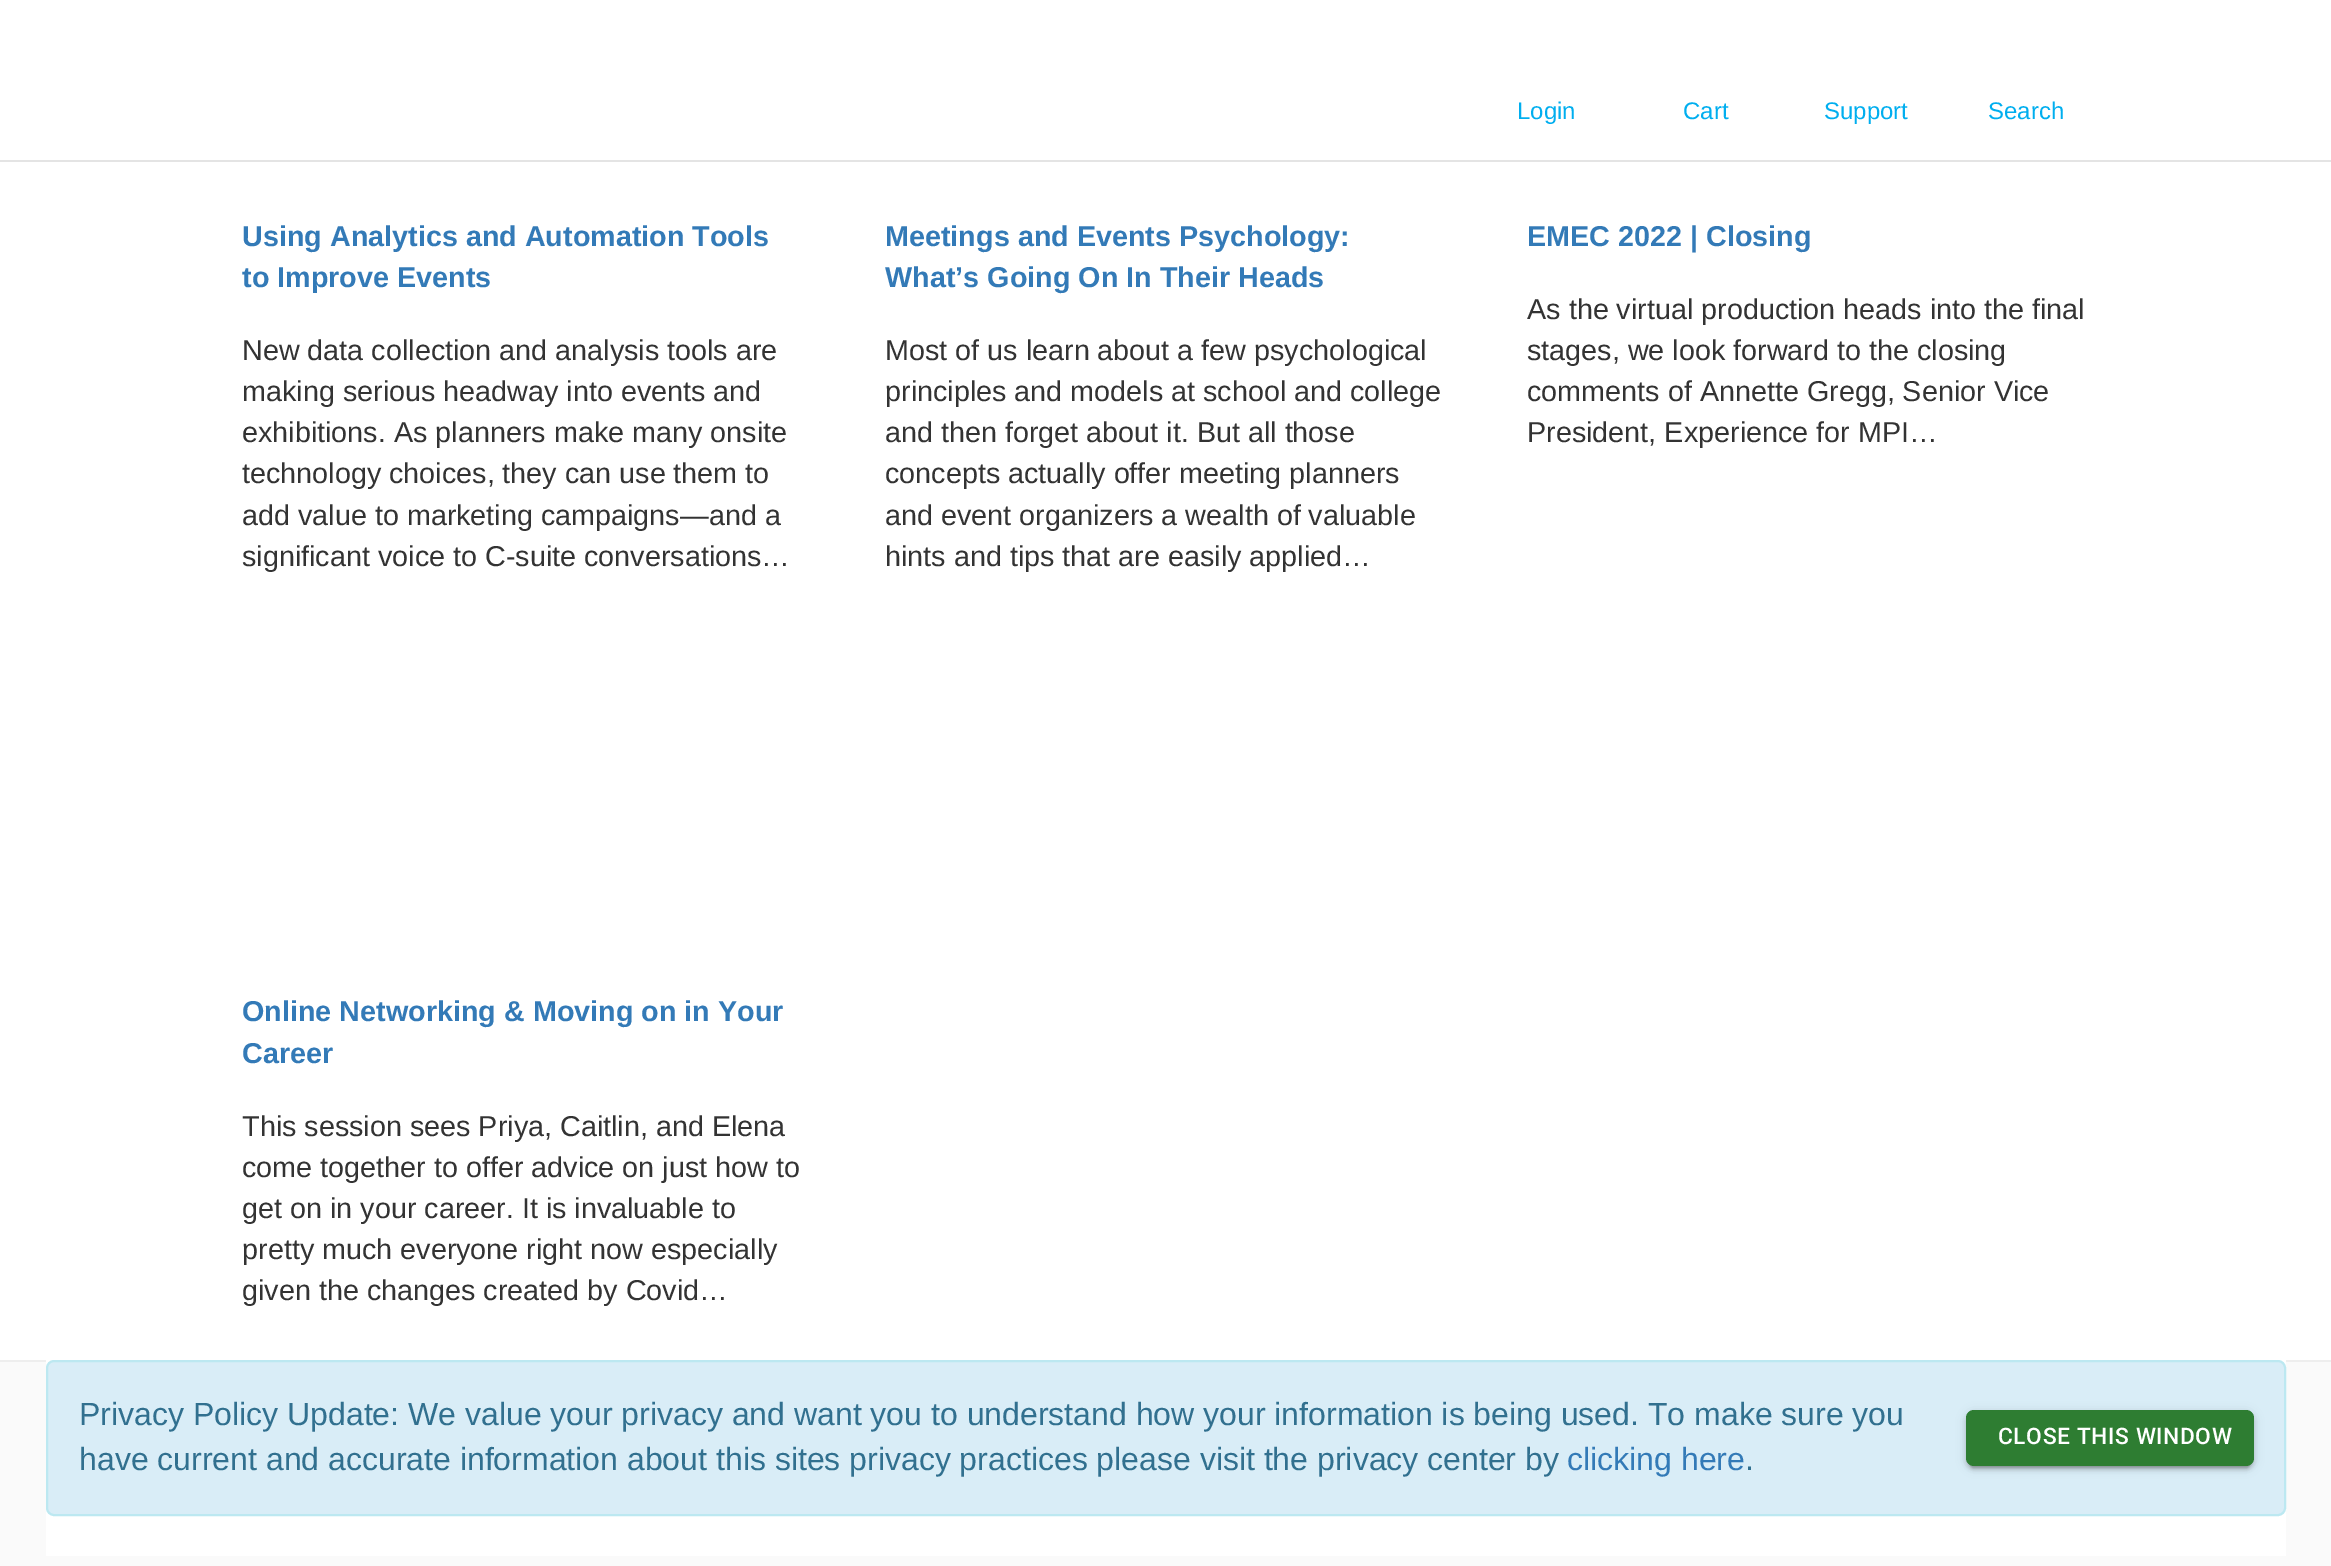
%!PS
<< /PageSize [2331 1566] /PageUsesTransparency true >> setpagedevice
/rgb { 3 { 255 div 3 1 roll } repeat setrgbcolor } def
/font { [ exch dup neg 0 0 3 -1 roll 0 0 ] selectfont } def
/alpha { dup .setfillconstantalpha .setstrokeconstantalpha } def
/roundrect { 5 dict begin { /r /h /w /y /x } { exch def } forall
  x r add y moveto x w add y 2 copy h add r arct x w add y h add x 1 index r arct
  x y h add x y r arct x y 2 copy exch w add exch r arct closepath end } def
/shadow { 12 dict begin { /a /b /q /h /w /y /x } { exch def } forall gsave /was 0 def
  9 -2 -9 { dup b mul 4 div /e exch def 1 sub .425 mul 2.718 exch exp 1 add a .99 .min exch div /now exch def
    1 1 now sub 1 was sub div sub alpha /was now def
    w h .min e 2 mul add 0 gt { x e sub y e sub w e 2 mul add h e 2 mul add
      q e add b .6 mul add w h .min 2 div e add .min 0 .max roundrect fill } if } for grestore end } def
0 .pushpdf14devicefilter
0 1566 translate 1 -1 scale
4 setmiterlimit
255 255 255 rgb
0 0 2331 1566 rectfill
[
  [0 160 2331 2 228 228 228]
  [0 1362 2331 204 250 250 250]
  [0 1360 2331 2 238 238 238]
  [46 1360 2240 196 255 255 255]
] { aload pop rgb rectfill } forall
217 237 247 rgb
47 1361 2238 154 7 roundrect gsave fill grestore
188 232 241 rgb
2 setlinewidth
stroke
0 0 0 rgb
1966 1412 288 56 8 5 0.12 shadow
1966 1414 288 56 8 2 0.14 shadow
1970 1420 280 48 4 1 0.2 shadow
46 125 50 rgb
1966 1410 288 56 8 roundrect fill
/LiberationSans-Regular 24 font
0 174 239 rgb
[
  [(Login) 1517 119]
  [(Cart) 1683 119]
  [(Support) 1824 119]
  [(Search) 1988 119]
] { aload pop moveto show } forall
/LiberationSans-Bold 28.75 font
51 122 183 rgb
242 246 moveto (Using Analytics and Automation Tools) show
242 287 moveto (to Improve Events) show
/LiberationSans-Regular 28.75 font
51 51 51 rgb
[
  [(New data collection and analysis tools are) 242 360]
  [(making serious headway into events and) 242 401]
  [(exhibitions. As planners make many onsite) 242 442]
  [(technology choices, they can use them to) 242 483]
  [(add value to marketing campaigns—and a) 242 525]
  [(significant voice to C-suite conversations…) 242 566]
] { aload pop moveto show } forall
/LiberationSans-Bold 28.75 font
51 122 183 rgb
885 246 moveto (Meetings and Events Psychology:) show
885 287 moveto (What’s Going On In Their Heads) show
/LiberationSans-Regular 28.75 font
51 51 51 rgb
[
  [(Most of us learn about a few psychological) 885 360]
  [(principles and models at school and college) 885 401]
  [(and then forget about it. But all those) 885 442]
  [(concepts actually offer meeting planners) 885 483]
  [(and event organizers a wealth of valuable) 885 525]
  [(hints and tips that are easily applied…) 885 566]
] { aload pop moveto show } forall
/LiberationSans-Bold 28.75 font
51 122 183 rgb
1527 246 moveto (EMEC 2022 | Closing) show
/LiberationSans-Regular 28.75 font
51 51 51 rgb
[
  [(As the virtual production heads into the final) 1527 319]
  [(stages, we look forward to the closing) 1527 360]
  [(comments of Annette Gregg, Senior Vice) 1527 401]
  [(President, Experience for MPI…) 1527 442]
] { aload pop moveto show } forall
/LiberationSans-Bold 28.75 font
51 122 183 rgb
242 1021 moveto (Online Networking & Moving on in Your) show
242 1063 moveto (Career) show
/LiberationSans-Regular 28.75 font
51 51 51 rgb
[
  [(This session sees Priya, Caitlin, and Elena) 242 1136]
  [(come together to offer advice on just how to) 242 1177]
  [(get on in your career. It is invaluable to) 242 1218]
  [(pretty much everyone right now especially) 242 1259]
  [(given the changes created by Covid…) 242 1300]
] { aload pop moveto show } forall
/LiberationSans-Regular 32 font
49 112 143 rgb
79 1425 moveto (Privacy Policy Update: We value your privacy and want you to understand how your information is being used. To make sure you) show
79 1470 moveto (have current and accurate information about this sites privacy practices please visit the privacy center by) show
51 122 183 rgb
1567 1470 moveto (clicking here) show
49 112 143 rgb
1745 1470 moveto (.) show
/Roboto-Medium 22.75 font
255 255 255 rgb
1998 1444 moveto 0.6 0 (CLOSE THIS WINDOW) ashow
.poppdf14devicefilter showpage
